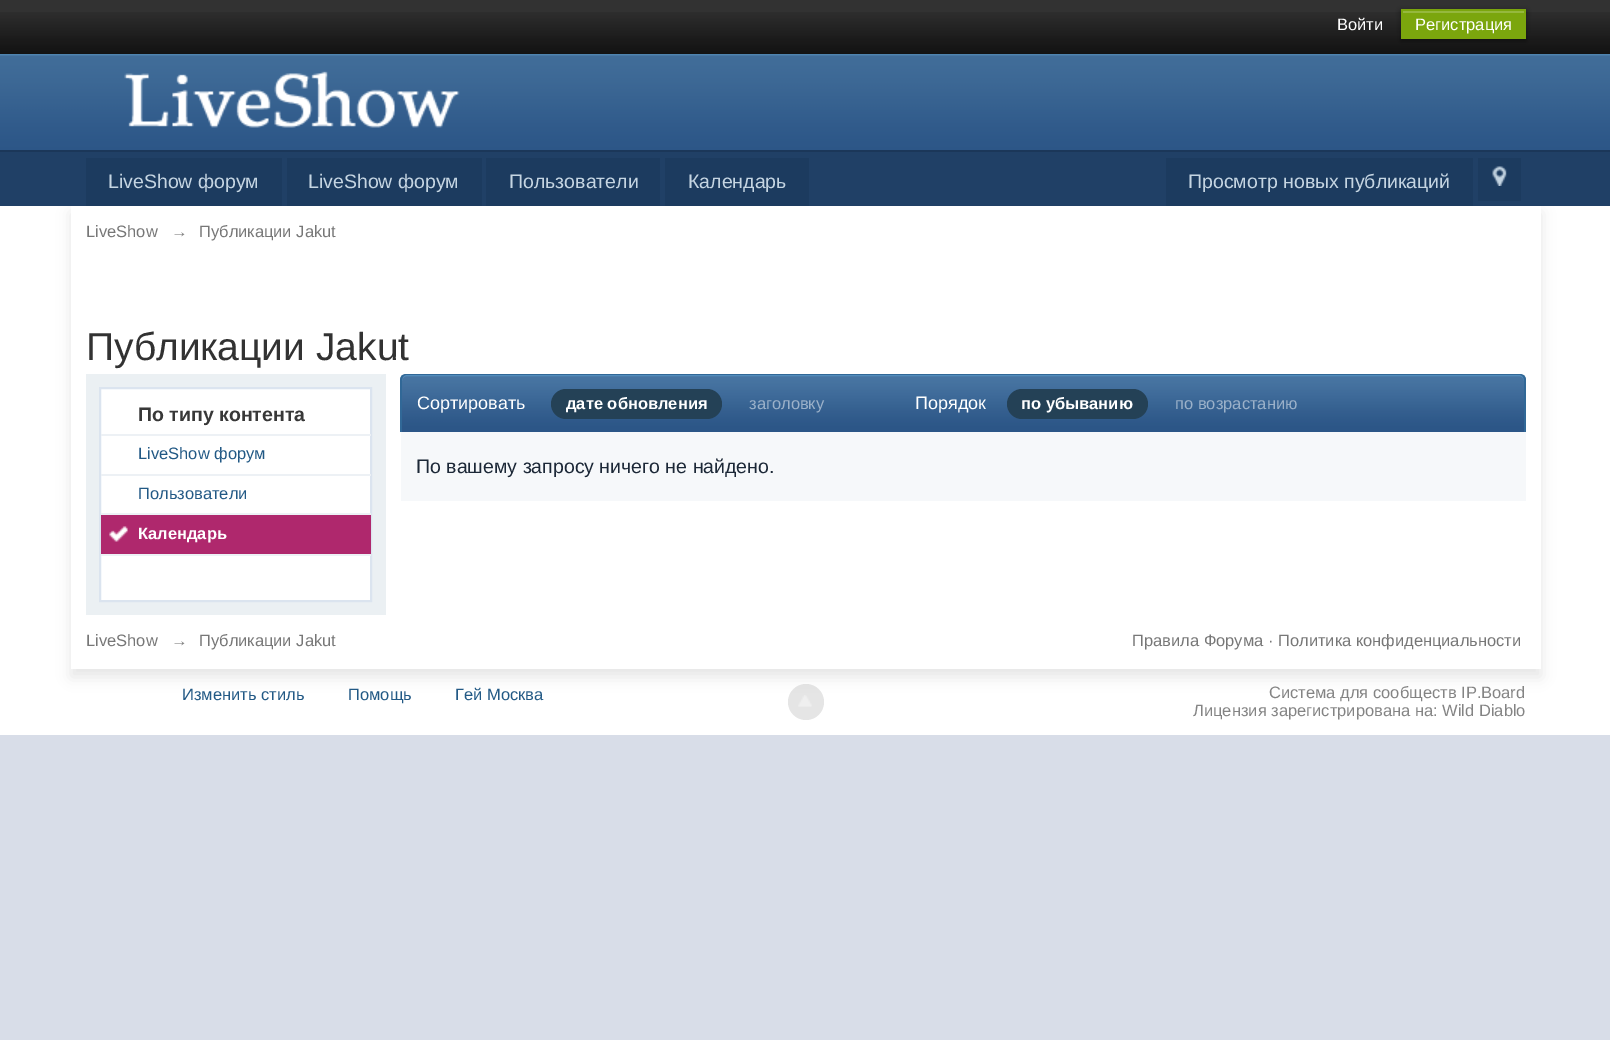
%!PS
<< /PageSize [1610 1040] /PageUsesTransparency true >> setpagedevice
/rgb { 3 { 255 div 3 1 roll } repeat setrgbcolor } def
/font { [ exch dup neg 0 0 3 -1 roll 0 0 ] selectfont } def
/alpha { dup .setfillconstantalpha .setstrokeconstantalpha } def
/circle { newpath 0 360 arc closepath } def
/roundrect { 5 dict begin { /r /h /w /y /x } { exch def } forall
  x r add y moveto x w add y 2 copy h add r arct x w add y h add x 1 index r arct
  x y h add x y r arct x y 2 copy exch w add exch r arct closepath end } def
/shadow { 12 dict begin { /a /b /q /h /w /y /x } { exch def } forall gsave /was 0 def
  9 -2 -9 { dup b mul 4 div /e exch def 1 sub .425 mul 2.718 exch exp 1 add a .99 .min exch div /now exch def
    1 1 now sub 1 was sub div sub alpha /was now def
    w h .min e 2 mul add 0 gt { x e sub y e sub w e 2 mul add h e 2 mul add
      q e add b .6 mul add w h .min 2 div e add .min 0 .max roundrect fill } if } for grestore end } def
/picture { 5 dict begin { /h /w /y /x /name } { exch def } forall
  gsave x y translate w h scale
  w h 8 [w 0 0 h 0 0] name (r) file false 3 colorimage grestore end } def
0 .pushpdf14devicefilter
0 1040 translate 1 -1 scale
4 setmiterlimit
216 221 232 rgb
0 0 1610 1040 rectfill
255 255 255 rgb
0 206 1610 529 rectfill
50 50 50 rgb
0 0 1610 12 rectfill
(img/1.rgb) 0 12 1610 42 picture
0 0 0 rgb
1401 11 125 30 0 3 0.4 shadow
123 166 13 rgb
1401 9 125 30 rectfill
149 184 61 rgb
1403 11 121 2 rectfill
(img/2.rgb) 0 54 1610 96 picture
27 55 89 rgb
0 150 1610 2 rectfill
(img/3.rgb) 124 71 336 57 picture
32 64 102 rgb
0 152 1610 54 rectfill
0 0 0 rgb
71 213 1470 464 0 7 0.1 shadow
[
  [86 158 196 48 28 59 95]
  [287 158 195 48 28 59 95]
  [486 158 174 48 28 59 95]
  [665 158 144 48 28 59 95]
  [1166 158 307 48 28 59 95]
  [1478 158 43 43 28 59 95]
] { aload pop rgb rectfill } forall
(img/4.rgb) 1492 166 15 20 picture
255 255 255 rgb
71 206 1470 463 rectfill
235 240 243 rgb
86 374 300 241 rectfill
255 255 255 rgb
100 388 moveto 371 388 lineto 371 601 lineto 100 601 lineto closepath gsave fill grestore
219 228 239 rgb
2 setlinewidth
stroke
[
  [101 434 270 2 237 241 245]
  [101 474 270 2 237 241 245]
  [101 513 270 2 237 241 245]
  [101 554 270 2 237 241 245]
  [101 515 270 39 175 40 109]
] { aload pop rgb rectfill } forall
(img/5.rgb) 109 526 19 16 picture
44 86 135 rgb
407 375 moveto 1519 375 lineto 1522 375 1524 377 1524 380 curveto 1524 432 lineto 402 432 lineto 402 380 lineto 402 377 404 375 407 375 curveto closepath fill
(img/6.rgb) 400 375 1126 53 picture
82 140 188 rgb
406 376 moveto 1520 376 lineto 1522 376 1524 379 1524 381 curveto 1524 378 1522 375 1519 375 curveto 407 375 lineto 404 375 402 378 402 381 curveto 402 379 404 376 406 376 curveto closepath fill
49 104 151 rgb
406 374 moveto 1520 374 lineto 1523 374 1526 376 1526 380 curveto 1526 432 lineto 400 432 lineto 400 380 lineto 400 376 403 374 406 374 curveto closepath 406 375 moveto 1520 375 lineto 1522 375 1524 377 1524 380 curveto 1524 432 lineto 402 432 lineto 402 380 lineto 402 377 404 375 406 375 curveto closepath eofill
36 65 86 rgb
551 389 171 30 15 roundrect fill
1007 389 141 30 15 roundrect fill
246 248 250 rgb
401 432 1125 69 rectfill
0.4 alpha
189 189 189 rgb
806 702 18 circle fill
1 alpha
(img/7.rgb) 798 695 14 12 picture
/LiberationSans-Regular 16.5 font
255 255 255 rgb
1337 30 moveto (Войти) show
1415 30 moveto (Регистрация) show
/LiberationSans-Regular 19.5 font
197 213 226 rgb
[
  [(LiveShow форум) 108 188]
  [(LiveShow форум) 308 188]
  [(Пользователи) 509 188]
  [(Календарь) 688 188]
  [(Просмотр новых публикаций) 1188 188]
] { aload pop moveto show } forall
/LiberationSans-Regular 16.5 font
119 119 119 rgb
[
  [(LiveShow) 86 237]
  [(→) 171 237]
  [(Публикации Jakut) 199 237]
] { aload pop moveto show } forall
/LiberationSans-Regular 39 font
50 50 50 rgb
86 360 moveto (Публикации Jakut) show
/LiberationSans-Bold 19.5 font
56 56 56 rgb
138 421 moveto (По типу контента) show
/LiberationSans-Regular 16.5 font
34 89 133 rgb
138 459 moveto (LiveShow форум) show
138 499 moveto (Пользователи) show
/LiberationSans-Bold 16.5 font
255 255 255 rgb
138 539 moveto (Календарь) show
/LiberationSans-Regular 18 font
417 409 moveto (Сортировать) show
/LiberationSans-Bold 16.5 font
566 409 moveto (дате обновления) show
/LiberationSans-Regular 16.5 font
155 177 201 rgb
749 409 moveto (заголовку) show
/LiberationSans-Regular 18 font
255 255 255 rgb
915 409 moveto (Порядок) show
/LiberationSans-Bold 16.5 font
1021 409 moveto (по убыванию) show
/LiberationSans-Regular 16.5 font
155 177 201 rgb
1175 409 moveto (по возрастанию) show
/LiberationSans-Regular 19.5 font
28 40 55 rgb
416 473 moveto (По вашему запросу ничего не найдено.) show
/LiberationSans-Regular 16.5 font
119 119 119 rgb
[
  [(LiveShow) 86 646]
  [(→) 171 646]
  [(Публикации Jakut) 199 646]
  [(Правила Форума ·) 1132 646]
  [(Политика конфиденциальности) 1278 646]
] { aload pop moveto show } forall
34 89 133 rgb
[
  [(Изменить стиль) 182 700]
  [(Помощь) 348 700]
  [(Гей Москва) 455 700]
] { aload pop moveto show } forall
132 132 132 rgb
1269 698 moveto (Система для сообществ IP.Board) show
1193 716 moveto (Лицензия зарегистрирована на: Wild Diablo) show
.poppdf14devicefilter showpage
